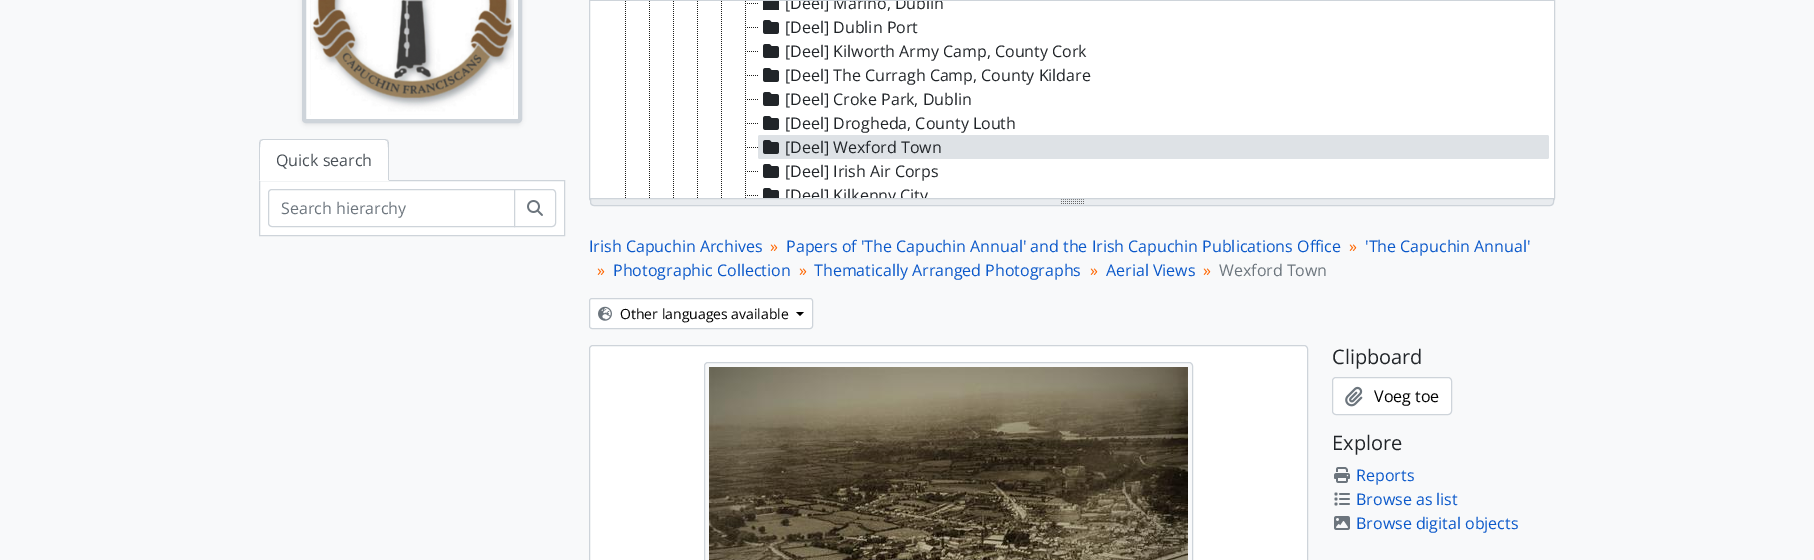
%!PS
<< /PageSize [1814 560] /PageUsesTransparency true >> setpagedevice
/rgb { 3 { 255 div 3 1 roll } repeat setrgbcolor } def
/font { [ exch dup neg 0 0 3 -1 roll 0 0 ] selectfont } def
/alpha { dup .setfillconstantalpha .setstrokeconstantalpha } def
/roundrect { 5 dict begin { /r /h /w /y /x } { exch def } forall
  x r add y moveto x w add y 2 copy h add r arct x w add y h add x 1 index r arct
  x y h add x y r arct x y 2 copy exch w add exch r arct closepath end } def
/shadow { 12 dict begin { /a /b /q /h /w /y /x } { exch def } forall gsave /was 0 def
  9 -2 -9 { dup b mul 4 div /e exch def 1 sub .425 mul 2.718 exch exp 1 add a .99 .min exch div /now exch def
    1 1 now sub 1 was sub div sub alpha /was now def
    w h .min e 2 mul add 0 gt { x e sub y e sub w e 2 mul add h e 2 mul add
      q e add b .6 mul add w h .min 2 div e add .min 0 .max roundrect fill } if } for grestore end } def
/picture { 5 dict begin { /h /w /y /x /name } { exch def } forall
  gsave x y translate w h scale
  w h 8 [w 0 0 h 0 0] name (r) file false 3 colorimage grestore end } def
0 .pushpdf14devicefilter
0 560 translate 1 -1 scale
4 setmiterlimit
248 249 250 rgb
0 0 1814 560 rectfill
0 0 0 rgb
302 -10 220 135 4 2 0.07 shadow
255 255 255 rgb
304 -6 216 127 2 roundrect gsave fill grestore
206 212 218 rgb
4 setlinewidth
stroke
(img/1.rgb) 310 0 204 115 picture
255 255 255 rgb
259.5 180.5 moveto 564.5 180.5 lineto 564.5 235.5 lineto 259.5 235.5 lineto closepath gsave fill grestore
206 212 218 rgb
1 setlinewidth
stroke
255 255 255 rgb
263 139 moveto 385 139 lineto 387 139 389 141 389 143 curveto 389 181 lineto 259 181 lineto 259 143 lineto 259 141 261 139 263 139 curveto closepath fill
206 212 218 rgb
263 139 moveto 260 140 lineto 261 141 lineto 263 140 lineto 385 140 lineto 387 141 lineto 388 140 lineto 385 139 lineto closepath fill
389 181 moveto 389 143 lineto 389 142 388 141 388 140 curveto 387 141 lineto 389 143 388 175 388 180 curveto closepath fill
255 255 255 rgb
389 181 moveto 388 180 lineto 260 180 lineto 259 181 lineto closepath fill
206 212 218 rgb
259 181 moveto 260 180 lineto 260 175 259 143 261 141 curveto 260 140 lineto 259 143 lineto closepath fill
272 189.5 moveto 514.5 189.5 lineto 514.5 226.5 lineto 272 226.5 lineto 270 226.5 268.5 225 268.5 223 curveto 268.5 193 lineto 268.5 191 270 189.5 272 189.5 curveto closepath stroke
255 255 255 rgb
514.5 189.5 moveto 552 189.5 lineto 554 189.5 555.5 191 555.5 193 curveto 555.5 223 lineto 555.5 225 554 226.5 552 226.5 curveto 514.5 226.5 lineto closepath gsave fill grestore
206 212 218 rgb
stroke
(img/2.rgb) 527 200 16 16 picture
255 255 255 rgb
589.5 -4.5 965 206 3.5 roundrect gsave fill grestore
206 212 218 rgb
stroke
590 0 964 1 rectfill
(img/3.rgb) 625 1 1 197 picture
(img/3.rgb) 649 1 1 197 picture
(img/3.rgb) 673 1 1 197 picture
(img/3.rgb) 697 1 1 197 picture
(img/3.rgb) 721 1 1 197 picture
(img/4.rgb) 745 1 1 13 picture
(img/5.rgb) 747 3 11 1 picture
33 37 41 rgb
763 1 16 9 rectfill
(img/6.rgb) 745 15 1 23 picture
(img/5.rgb) 747 27 11 1 picture
(img/7.rgb) 763 20 16 14 picture
(img/6.rgb) 745 39 1 23 picture
(img/5.rgb) 747 51 11 1 picture
(img/7.rgb) 763 44 16 14 picture
(img/6.rgb) 745 63 1 23 picture
(img/5.rgb) 747 75 11 1 picture
(img/7.rgb) 763 68 16 14 picture
(img/6.rgb) 745 87 1 23 picture
(img/5.rgb) 747 99 11 1 picture
(img/7.rgb) 763 92 16 14 picture
(img/6.rgb) 745 111 1 23 picture
(img/5.rgb) 747 123 11 1 picture
(img/7.rgb) 763 116 16 14 picture
(img/6.rgb) 745 135 1 23 picture
(img/5.rgb) 747 147 11 1 picture
222 226 230 rgb
758 135 791 24 2 roundrect fill
(img/8.rgb) 763 140 16 14 picture
(img/6.rgb) 745 159 1 23 picture
(img/5.rgb) 747 171 11 1 picture
(img/7.rgb) 763 164 16 14 picture
(img/9.rgb) 745 183 1 15 picture
(img/5.rgb) 747 195 11 1 picture
(img/10.rgb) 763 188 16 10 picture
255 255 255 rgb
589.5 298.5 223 30 2.5 roundrect gsave fill grestore
206 212 218 rgb
stroke
(img/12.rgb) 598 306 14 15 picture
0 0 0 rgb
796 312 moveto 804 312 lineto 800 316 lineto closepath fill
255 255 255 rgb
589.5 345.5 718 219 3.5 roundrect gsave fill grestore
206 212 218 rgb
stroke
248 249 250 rgb
704.5 362.5 488 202 3.5 roundrect gsave fill grestore
206 212 218 rgb
stroke
(img/13.rgb) 709 367 479 193 picture
255 255 255 rgb
1332.5 377.5 119 37 3.5 roundrect gsave fill grestore
206 212 218 rgb
stroke
(img/14.rgb) 1345 386 18 21 picture
(img/15.rgb) 1334 467 16 16 picture
(img/16.rgb) 1334 492 16 14 picture
(img/17.rgb) 1334 516 16 14 picture
/OpenSans-Regular 16 font
73 80 87 rgb
276 166 moveto (Quick search) show
108 117 125 rgb
281 214 moveto (Search hierarchy) show
gsave
758 1 791 14 rectclip
33 37 41 rgb
785 9 moveto ([Deel] Marino, Dublin) show
grestore
33 37 41 rgb
[
  [([Deel] Dublin Port) 785 33]
  [([Deel] Kilworth Army Camp, County Cork) 785 57]
  [([Deel] The Curragh Camp, County Kildare) 785 81]
  [([Deel] Croke Park, Dublin) 785 105]
  [([Deel] Drogheda, County Louth) 785 129]
  [([Deel] Wexford Town) 785 153]
  [([Deel] Irish Air Corps) 785 177]
  [([Deel] Kilkenny City) 785 201]
] { aload pop moveto show } forall
233 236 239 rgb
590 198 moveto 1554 198 lineto 1554 202 lineto 1554 204 1552 206 1550 206 curveto 594 206 lineto 592 206 590 204 590 202 curveto closepath fill
(img/11.rgb) 1061 199 23 5 picture
206 212 218 rgb
590.5 198.5 moveto 1553.5 198.5 lineto 1553.5 202 lineto 1553.5 204 1552 205.5 1550 205.5 curveto 594 205.5 lineto 592 205.5 590.5 204 590.5 202 curveto closepath stroke
10 88 202 rgb
589 252 moveto (Irish Capuchin Archives) show
255 102 0 rgb
770 252 moveto (») show
10 88 202 rgb
786 252 moveto (Papers of 'The Capuchin Annual' and the Irish Capuchin Publications Office) show
255 102 0 rgb
1349 252 moveto (») show
10 88 202 rgb
1365 252 moveto ('The Capuchin Annual') show
255 102 0 rgb
597 276 moveto (») show
10 88 202 rgb
613 276 moveto (Photographic Collection) show
255 102 0 rgb
799 276 moveto (») show
10 88 202 rgb
814 276 moveto (Thematically Arranged Photographs) show
255 102 0 rgb
1090 276 moveto (») show
10 88 202 rgb
1106 276 moveto (Aerial Views) show
255 102 0 rgb
1203 276 moveto (») show
108 117 125 rgb
1219 276 moveto (Wexford Town) show
/OpenSans-Regular 14 font
0 0 0 rgb
620 319 moveto (Other languages available) show
/OpenSans-Regular 20 font
33 37 41 rgb
1332 364 moveto (Clipboard) show
/OpenSans-Regular 16 font
0 0 0 rgb
1374 402 moveto (Voeg toe) show
/OpenSans-Regular 20 font
33 37 41 rgb
1332 450 moveto (Explore) show
/OpenSans-Regular 16 font
10 88 202 rgb
[
  [(Reports) 1356 481]
  [(Browse as list) 1356 505]
  [(Browse digital objects) 1356 529]
] { aload pop moveto show } forall
.poppdf14devicefilter showpage
